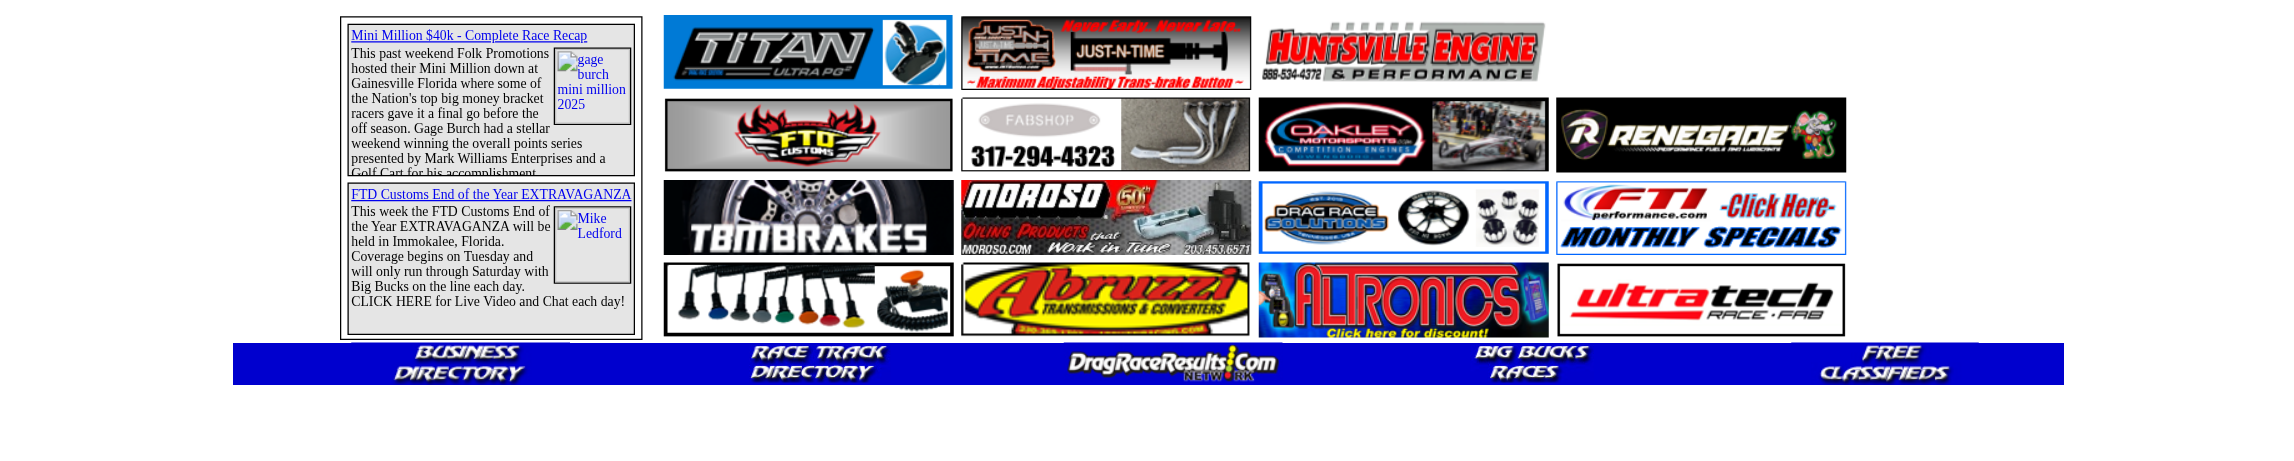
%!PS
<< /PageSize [2294 461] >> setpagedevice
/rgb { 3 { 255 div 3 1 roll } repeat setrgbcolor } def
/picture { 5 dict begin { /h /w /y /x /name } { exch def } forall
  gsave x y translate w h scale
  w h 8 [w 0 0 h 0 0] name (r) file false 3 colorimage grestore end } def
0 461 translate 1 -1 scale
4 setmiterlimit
255 255 255 rgb
0 0 2294 461 rectfill
(img/1.rgb) 340 16 303 324 picture
(img/2.rgb) 663 15 290 74 picture
(img/3.rgb) 961 16 291 74 picture
(img/4.rgb) 1262 21 284 61 picture
(img/5.rgb) 664 98 289 74 picture
(img/6.rgb) 961 97 290 75 picture
(img/7.rgb) 1258 97 291 75 picture
(img/8.rgb) 1556 97 291 76 picture
(img/9.rgb) 663 180 291 75 picture
(img/10.rgb) 961 180 291 75 picture
(img/11.rgb) 1258 181 291 73 picture
(img/12.rgb) 1556 181 291 74 picture
(img/13.rgb) 663 262 291 75 picture
(img/14.rgb) 961 262 289 75 picture
(img/15.rgb) 1258 262 291 76 picture
(img/16.rgb) 1557 263 289 74 picture
0 0 206 rgb
233 343 1831 42 rectfill
(img/17.rgb) 351 342 219 43 picture
(img/18.rgb) 749 345 142 38 picture
(img/19.rgb) 1063 342 220 40 picture
(img/20.rgb) 1470 345 124 38 picture
(img/21.rgb) 1791 342 188 43 picture
showpage
